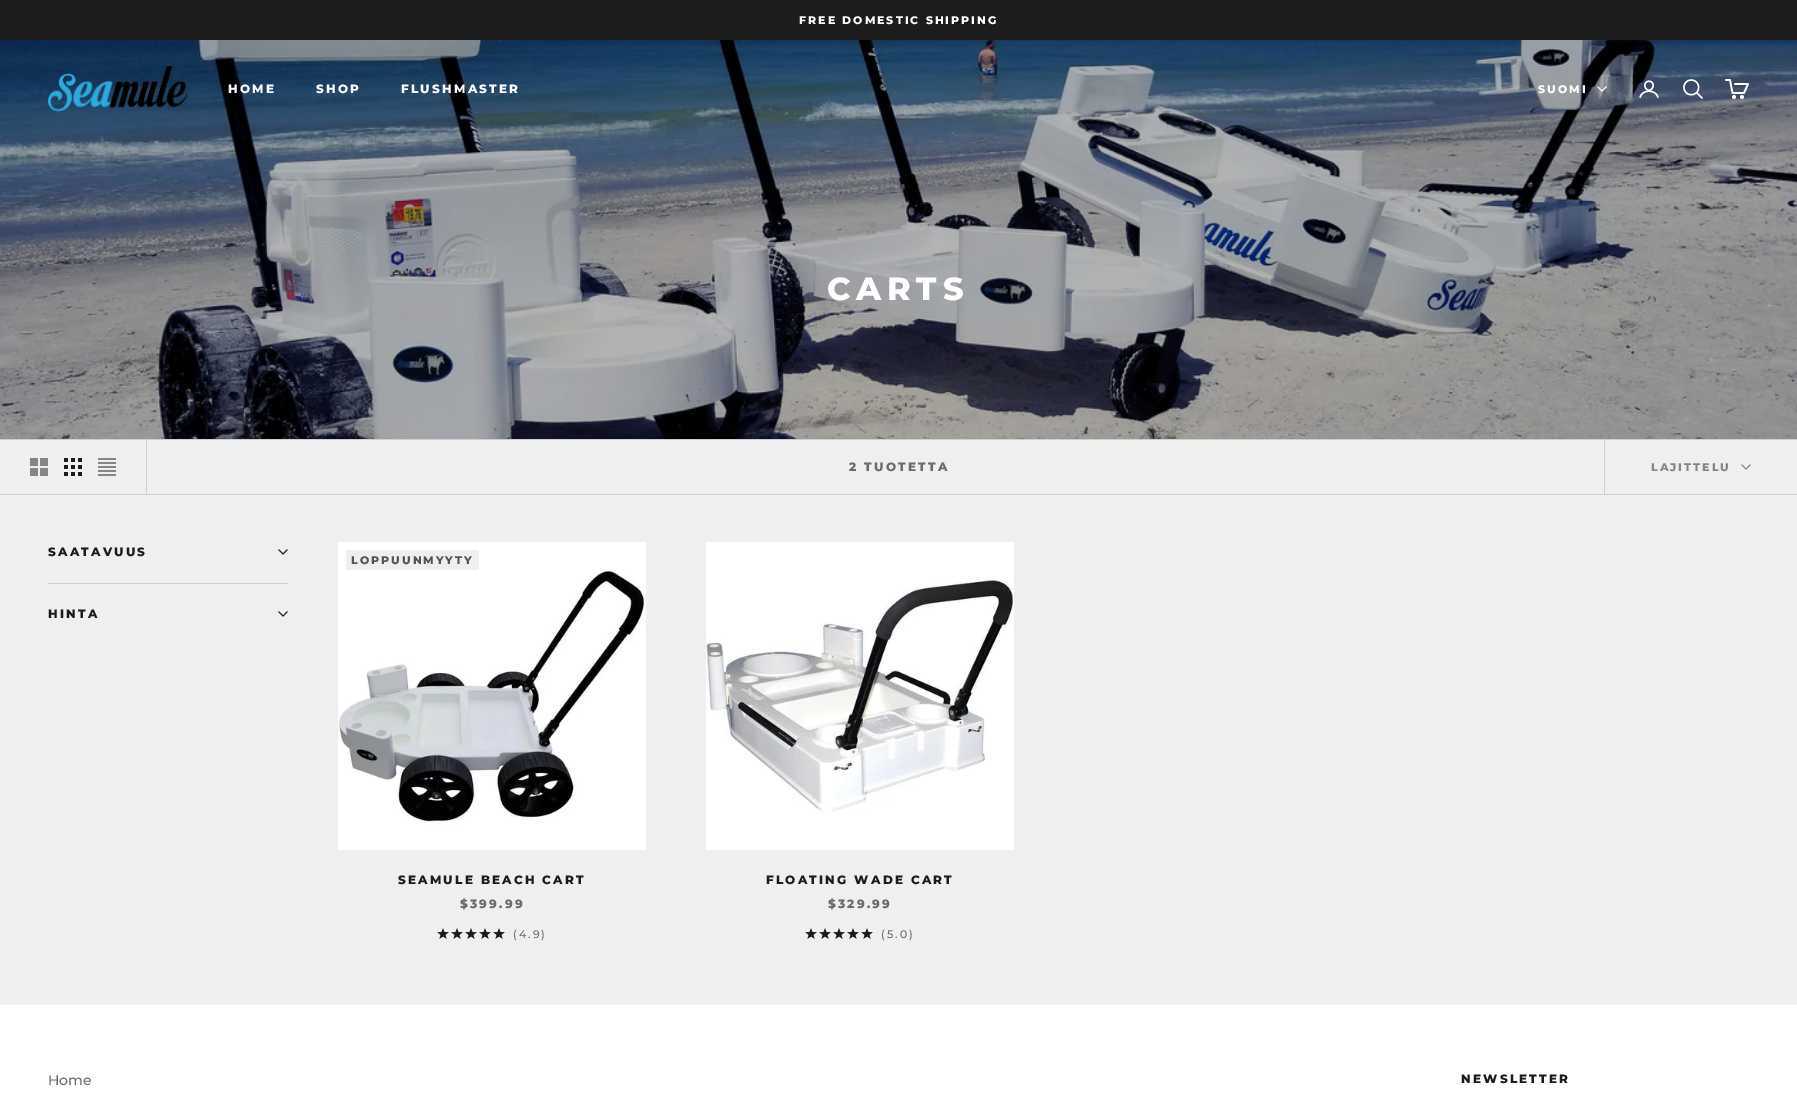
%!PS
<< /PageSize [1797 1101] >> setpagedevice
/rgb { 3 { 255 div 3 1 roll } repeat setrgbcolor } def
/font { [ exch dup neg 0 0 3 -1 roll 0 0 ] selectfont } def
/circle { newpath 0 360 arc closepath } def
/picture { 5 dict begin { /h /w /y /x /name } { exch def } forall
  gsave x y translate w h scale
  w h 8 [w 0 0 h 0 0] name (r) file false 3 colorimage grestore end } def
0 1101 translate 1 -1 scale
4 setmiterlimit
239 239 239 rgb
0 0 1797 1101 rectfill
28 28 28 rgb
0 0 1797 40 rectfill
(img/4.rgb) 0 40 1797 399 picture
(img/1.rgb) 48 66 140 46 picture
255 255 255 rgb
2 setlinecap
1598 87 moveto 1602 91 lineto 1606 87 lineto stroke
(img/2.rgb) 1639 80 20 18 picture
(img/3.rgb) 1683 79 20 20 picture
1.7 setlinewidth
1 setlinecap
1 setlinejoin
1735 84 moveto 1748 84 lineto 1744 93 lineto 1732.5 93 lineto 1730 80 lineto 1726 80 lineto stroke
0 setlinecap
0 setlinejoin
1734 97 1 circle stroke
1742 97 1 circle stroke
[
  [0 439 1797 1 207 207 207]
  [0 494 1797 1 207 207 207]
  [146 440 1 54 207 207 207]
] { aload pop rgb rectfill } forall
(img/5.rgb) 30 458 18 18 picture
(img/6.rgb) 64 458 18 18 picture
(img/7.rgb) 98 458 18 18 picture
1604 440 1 54 rectfill
134 134 134 rgb
1 setlinewidth
2 setlinecap
1742 465 moveto 1746 469 lineto 1750 465 lineto stroke
207 207 207 rgb
48 583 240 1 rectfill
28 28 28 rgb
279 550 moveto 283 554 lineto 287 550 lineto stroke
279 612 moveto 283 616 lineto 287 612 lineto stroke
(img/8.rgb) 338 542 308 308 picture
239 239 239 rgb
346 550 133 20 rectfill
(img/9.rgb) 437 928 12 11 picture
(img/9.rgb) 451 928 12 11 picture
(img/9.rgb) 465 928 12 11 picture
(img/9.rgb) 479 928 12 11 picture
(img/9.rgb) 493 928 12 11 picture
(img/10.rgb) 706 542 308 308 picture
(img/9.rgb) 805 928 12 11 picture
(img/9.rgb) 819 928 12 11 picture
(img/9.rgb) 833 928 12 11 picture
(img/9.rgb) 847 928 12 11 picture
(img/9.rgb) 861 928 12 11 picture
255 255 255 rgb
0 1005 1797 96 rectfill
/Montserrat-ExtraBold 11 font
799 24 moveto 2 0 (FREE DOMESTIC SHIPPING) ashow
/Montserrat-ExtraBold 12 font
228 93 moveto 2.2 0 (HOME) ashow
316 93 moveto 2.2 0 (SHOP) ashow
401 93 moveto 2.2 0 (FLUSHMASTER) ashow
/Montserrat-ExtraBold 11 font
1538 93 moveto 2 0 (SUOMI) ashow
/Montserrat-ExtraBold 32 font
827 300 moveto 5.75 0 (CARTS) ashow
/Montserrat-ExtraBold 12 font
107 107 107 rgb
849 471 moveto 2.2 0 (2 TUOTETTA) ashow
/Montserrat-ExtraBold 11 font
134 134 134 rgb
1651 471 moveto 2 0 (LAJITTELU) ashow
/Montserrat-ExtraBold 12 font
28 28 28 rgb
48 556 moveto 2.2 0 (SAATAVUUS) ashow
48 618 moveto 2.2 0 (HINTA) ashow
/Montserrat-ExtraBold 11 font
84 84 84 rgb
351 564 moveto 2 0 (LOPPUUNMYYTY) ashow
/Montserrat-ExtraBold 12 font
28 28 28 rgb
398 884 moveto 2.2 0 (SEAMULE BEACH CART) ashow
107 107 107 rgb
460 908 moveto 2.2 0 ($399.99) ashow
/Montserrat-Medium 11 font
513 938 moveto 2 0 (\(4.9\)) ashow
/Montserrat-ExtraBold 12 font
28 28 28 rgb
766 884 moveto 2.2 0 (FLOATING WADE CART) ashow
107 107 107 rgb
828 908 moveto 2.2 0 ($329.99) ashow
/Montserrat-Medium 11 font
881 938 moveto 2 0 (\(5.0\)) ashow
/Montserrat-Medium 14 font
48 1085 moveto (Home) show
/Montserrat-ExtraBold 12 font
28 28 28 rgb
1461 1083 moveto 2.2 0 (NEWSLETTER) ashow
showpage
